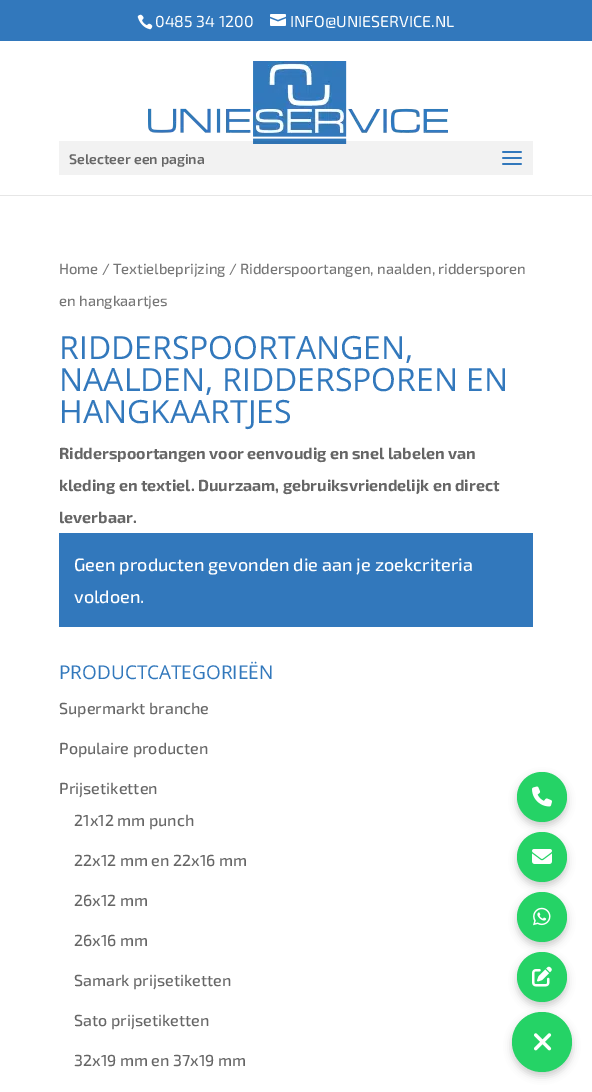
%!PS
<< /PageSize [592 1092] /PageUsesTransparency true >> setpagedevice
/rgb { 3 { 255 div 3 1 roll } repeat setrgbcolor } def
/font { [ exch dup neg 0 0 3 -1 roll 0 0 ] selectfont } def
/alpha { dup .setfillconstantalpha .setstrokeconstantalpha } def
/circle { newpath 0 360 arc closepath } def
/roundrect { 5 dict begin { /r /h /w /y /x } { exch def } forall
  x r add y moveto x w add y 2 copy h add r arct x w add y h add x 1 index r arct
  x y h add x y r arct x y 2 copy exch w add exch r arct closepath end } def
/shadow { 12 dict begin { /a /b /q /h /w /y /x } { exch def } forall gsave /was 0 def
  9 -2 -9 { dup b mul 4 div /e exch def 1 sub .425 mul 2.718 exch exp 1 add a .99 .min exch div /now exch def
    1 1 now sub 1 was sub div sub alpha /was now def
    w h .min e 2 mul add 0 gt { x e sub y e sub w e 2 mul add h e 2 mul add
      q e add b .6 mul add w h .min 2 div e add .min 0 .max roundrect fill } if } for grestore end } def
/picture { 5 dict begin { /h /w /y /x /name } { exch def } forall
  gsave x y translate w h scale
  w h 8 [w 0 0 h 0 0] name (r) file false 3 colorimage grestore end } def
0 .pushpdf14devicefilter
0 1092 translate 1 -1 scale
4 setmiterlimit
255 255 255 rgb
0 0 592 1092 rectfill
50 120 188 rgb
0 0 592 41 rectfill
(img/1.rgb) 137 14 16 16 picture
(img/2.rgb) 270 14 16 12 picture
230 230 230 rgb
0 195 592 1 rectfill
(img/3.rgb) 148 61 300 83 picture
0.05 alpha
0 0 0 rgb
59 141 474 34 rectfill
1 alpha
(img/4.rgb) 502 151 20 14 picture
50 120 188 rgb
59 533 474 94 rectfill
0 0 0 rgb
517 776 50 50 25 4 0.2 shadow
37 211 102 rgb
542 797 25 circle fill
(img/5.rgb) 532 786 20 21 picture
0 0 0 rgb
517 836 50 50 25 4 0.2 shadow
37 211 102 rgb
542 857 25 circle fill
(img/6.rgb) 532 849 20 15 picture
0 0 0 rgb
517 896 50 50 25 4 0.2 shadow
37 211 102 rgb
542 917 25 circle fill
(img/7.rgb) 533 907 18 19 picture
0 0 0 rgb
512 1016 60 60 30 4 0.2 shadow
37 211 102 rgb
542 1042 30 circle fill
0 0 0 rgb
517 956 50 50 25 4 0.2 shadow
37 211 102 rgb
542 977 25 circle fill
(img/8.rgb) 532 966 20 21 picture
(img/9.rgb) 534 1033 18 18 picture
/Exo2-Regular 16 font
255 255 255 rgb
155 27 moveto (0485 34 1200) show
290 27 moveto (INFO@UNIESERVICE.NL) show
/Exo2-SemiBold 14 font
102 102 102 rgb
69 164 moveto (Selecteer een pagina) show
/Exo2-Medium 14.75 font
118 118 118 rgb
59 274 moveto (Home / Textielbeprijzing / Ridderspoortangen, naalden, riddersporen) show
59 306 moveto (en hangkaartjes) show
/OpenSans-Regular 32 font
50 120 188 rgb
[
  [(RIDDERSPOORTANGEN,) 59 359]
  [(NAALDEN, RIDDERSPOREN EN) 59 391]
  [(HANGKAARTJES) 59 423]
] { aload pop moveto show } forall
/Exo2-Bold 16 font
102 102 102 rgb
[
  [(Ridderspoortangen voor eenvoudig en snel labelen van) 59 459]
  [(kleding en textiel. Duurzaam, gebruiksvriendelijk en direct) 59 491]
  [(leverbaar.) 59 523]
] { aload pop moveto show } forall
/Exo2-Medium 18 font
255 255 255 rgb
74 571 moveto (Geen producten gevonden die aan je zoekcriteria) show
74 603 moveto (voldoen.) show
/OpenSans-Regular 19 font
50 120 188 rgb
59 679 moveto (PRODUCTCATEGORIEËN) show
/Exo2-Medium 16 font
102 102 102 rgb
[
  [(Supermarkt branche) 59 714]
  [(Populaire producten) 59 754]
  [(Prijsetiketten) 59 794]
  [(21x12 mm punch) 74 826]
  [(22x12 mm en 22x16 mm) 74 866]
  [(26x12 mm) 74 906]
  [(26x16 mm) 74 946]
  [(Samark prijsetiketten) 74 986]
  [(Sato prijsetiketten) 74 1026]
  [(32x19 mm en 37x19 mm) 74 1066]
] { aload pop moveto show } forall
.poppdf14devicefilter showpage
